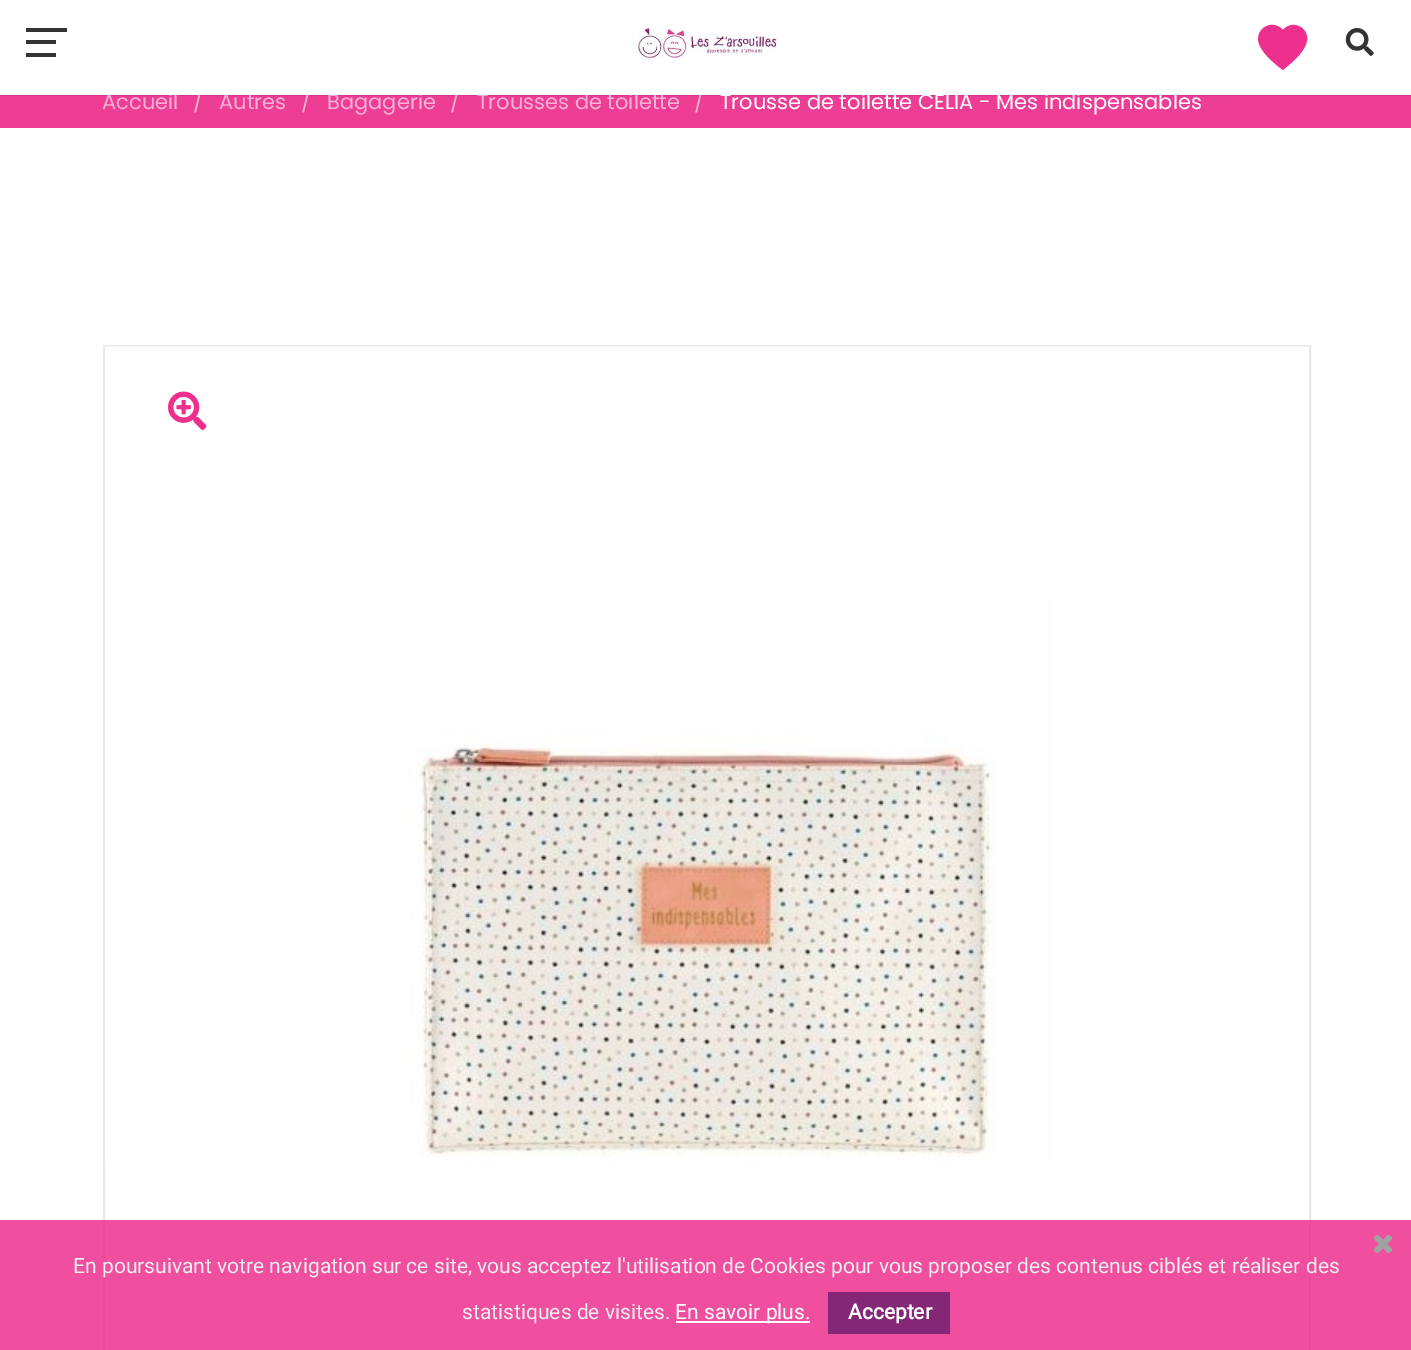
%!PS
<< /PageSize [1411 1350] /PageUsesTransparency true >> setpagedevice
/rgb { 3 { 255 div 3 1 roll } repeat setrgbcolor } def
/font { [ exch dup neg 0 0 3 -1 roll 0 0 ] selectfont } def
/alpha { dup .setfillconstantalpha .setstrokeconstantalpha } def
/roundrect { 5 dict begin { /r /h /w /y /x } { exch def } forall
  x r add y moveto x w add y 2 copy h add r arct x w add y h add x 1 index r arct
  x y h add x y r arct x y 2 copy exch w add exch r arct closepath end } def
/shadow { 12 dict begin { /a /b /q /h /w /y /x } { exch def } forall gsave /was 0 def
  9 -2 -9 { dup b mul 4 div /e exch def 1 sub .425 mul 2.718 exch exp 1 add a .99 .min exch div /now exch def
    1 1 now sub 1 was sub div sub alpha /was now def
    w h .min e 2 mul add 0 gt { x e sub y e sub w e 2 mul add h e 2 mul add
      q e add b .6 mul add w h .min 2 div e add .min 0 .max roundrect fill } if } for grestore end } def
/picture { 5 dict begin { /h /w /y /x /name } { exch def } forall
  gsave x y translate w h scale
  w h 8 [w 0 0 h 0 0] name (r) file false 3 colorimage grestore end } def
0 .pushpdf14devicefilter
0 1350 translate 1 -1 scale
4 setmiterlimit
255 255 255 rgb
0 0 1411 1350 rectfill
238 61 149 rgb
0 95 1411 33 rectfill
0 0 0 rgb
0 0 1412 95 0 1 0.3 shadow
233 233 233 rgb
2 setlinewidth
104 346 1206 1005 rectstroke
(img/3.rgb) 105 346 1204 819 picture
(img/4.rgb) 168 391 39 39 picture
0.85 alpha
237 47 142 rgb
0 1220 1411 130 rectfill
1 alpha
(img/5.rgb) 1373 1234 20 20 picture
255 255 255 rgb
676 1321 134 2 rectfill
132 39 118 rgb
828 1292 122 42 rectfill
/Poppins-Regular 21 font
248 177 213 rgb
[
  [(Accueil) 102 109]
  [(/) 193 109]
  [(Autres) 219 109]
  [(/) 301 109]
  [(Bagagerie) 327 109]
  [(/) 450 109]
  [(Trousses de toilette) 477 109]
  [(/) 694 109]
] { aload pop moveto show } forall
255 255 255 rgb
0 0 1411 95 rectfill
237 47 142 rgb
1283 70 moveto 1275 64 1264 55 1260 46 curveto 1252 31 1271 17 1283 30 curveto 1293 18 1312 29 1306 44 curveto 1302 55 1291 63 1283 70 curveto closepath fill
(img/2.rgb) 1345 28 29 28 picture
[
  [26 53 30 4 51 51 51]
  [26 28 41 4 51 51 51]
  [26 40 30 4 51 51 51]
] { aload pop rgb rectfill } forall
(img/1.rgb) 637 28 140 30 picture
255 255 255 rgb
720 109 moveto (Trousse de toilette CELIA - Mes indispensables) show
/Roboto-Regular 21 font
239 239 239 rgb
73 1273 moveto (En poursuivant votre navigation sur ce site, vous acceptez l'utilisation de Cookies pour vous proposer des contenus ciblés et réaliser des) show
462 1319 moveto (statistiques de visites.) show
255 255 255 rgb
675 1319 moveto (En savoir plus.) show
/Roboto-Bold 21 font
848 1319 moveto (Accepter) show
.poppdf14devicefilter showpage
